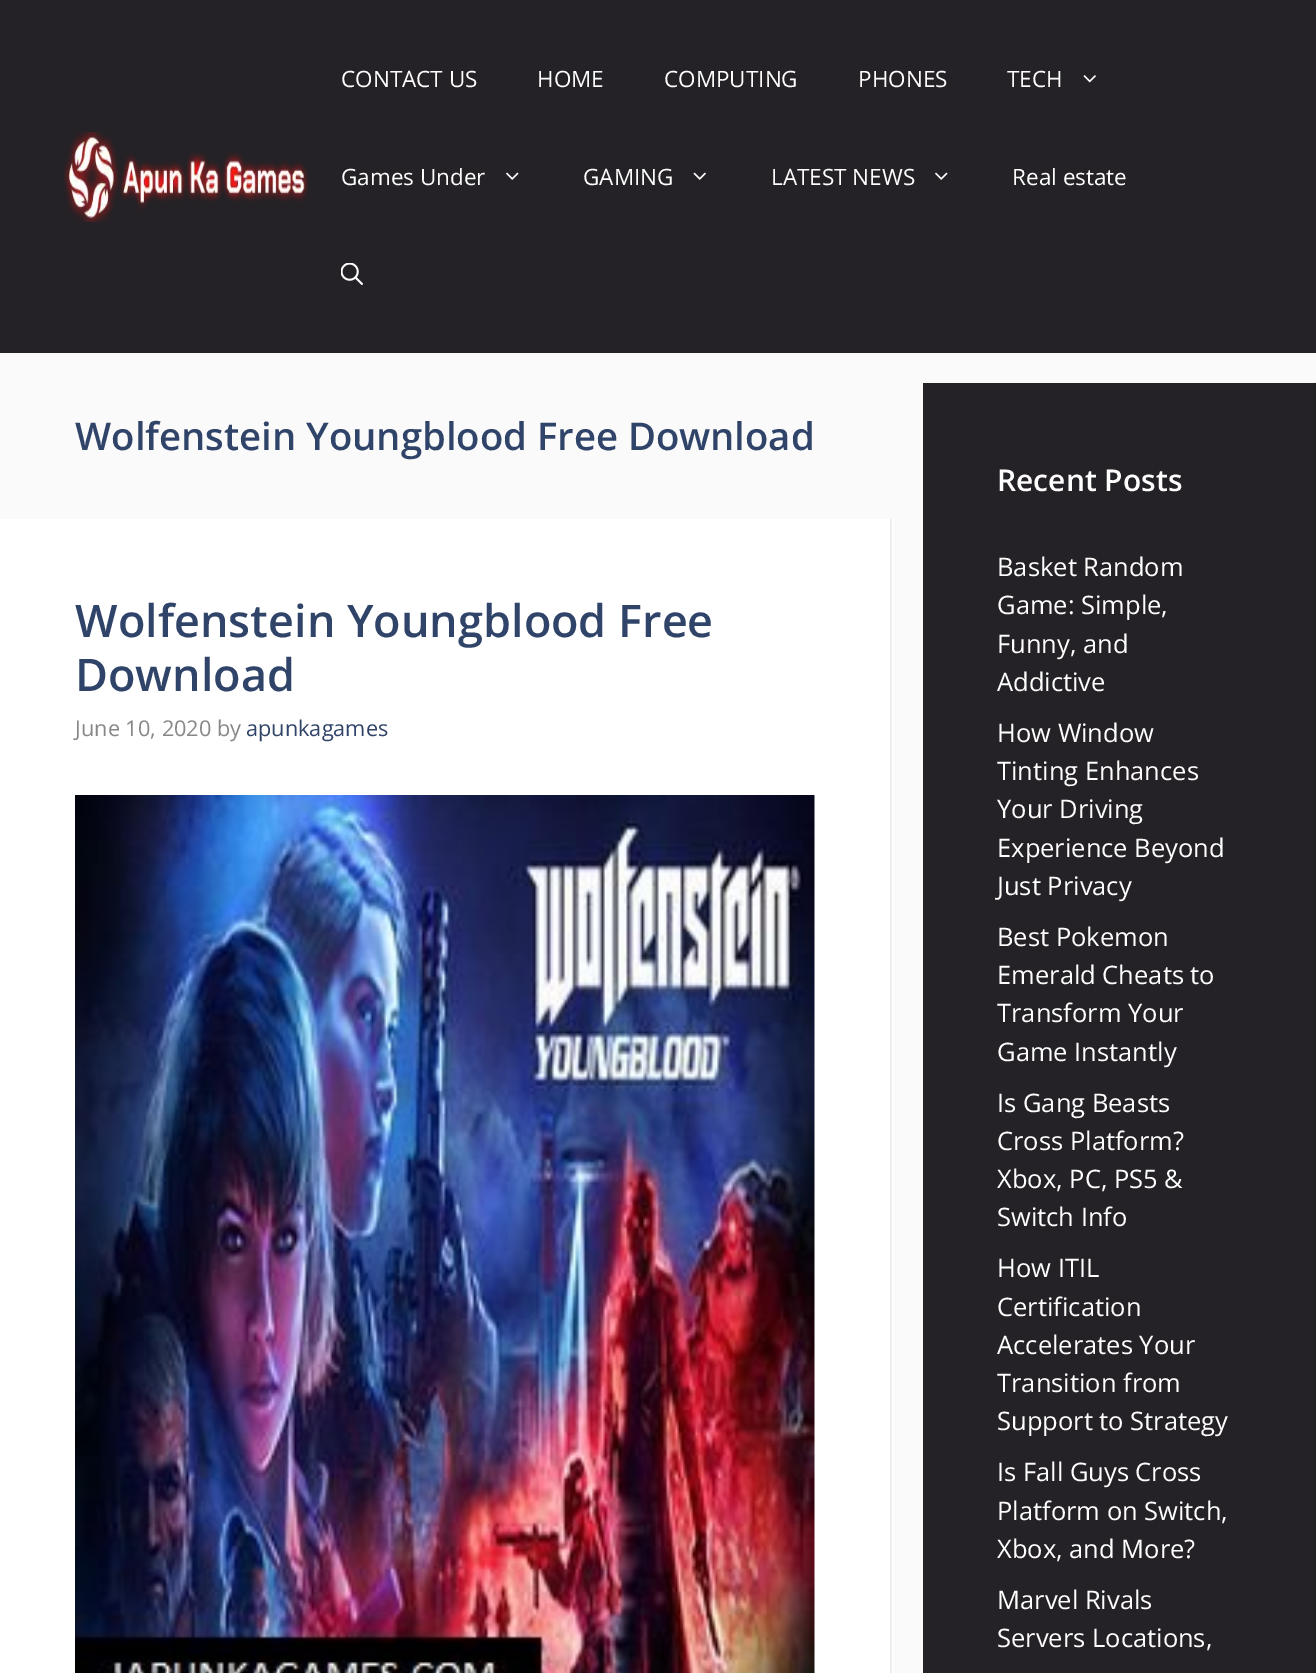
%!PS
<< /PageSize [1316 1673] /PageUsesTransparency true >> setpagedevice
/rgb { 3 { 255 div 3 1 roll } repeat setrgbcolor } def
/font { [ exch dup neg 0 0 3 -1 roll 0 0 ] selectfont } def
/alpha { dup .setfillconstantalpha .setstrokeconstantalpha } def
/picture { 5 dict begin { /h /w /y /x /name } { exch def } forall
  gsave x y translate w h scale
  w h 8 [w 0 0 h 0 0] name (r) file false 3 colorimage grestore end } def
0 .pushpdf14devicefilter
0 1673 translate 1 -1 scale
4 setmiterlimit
250 250 250 rgb
0 0 1316 1673 rectfill
36 34 38 rgb
0 0 1316 353 rectfill
(img/1.rgb) 63 132 245 90 picture
(img/2.rgb) 1083 75 13 8 picture
(img/3.rgb) 506 172 13 8 picture
(img/4.rgb) 693 172 13 8 picture
(img/3.rgb) 935 172 13 8 picture
(img/5.rgb) 341 263 22 22 picture
255 255 255 rgb
0 519 893 1154 rectfill
237 237 237 rgb
892 519 moveto 892 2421 lineto 890 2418 lineto 890 519 lineto closepath fill
(img/6.rgb) 75 795 740 878 picture
36 34 38 rgb
923 383 393 1290 rectfill
0.07 alpha
0 0 0 rgb
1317 382 moveto 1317 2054 lineto 1314 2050 lineto 1314 382 lineto closepath fill
/OpenSans-Regular 22.5 font
1 alpha
255 255 255 rgb
[
  [(CONTACT US) 341 87]
  [(HOME) 537 87]
  [(COMPUTING) 664 87]
  [(PHONES) 858 87]
  [(TECH) 1007 87]
  [(Games Under) 341 185]
  [(GAMING) 583 185]
  [(LATEST NEWS) 771 185]
  [(Real estate) 1012 185]
] { aload pop moveto show } forall
/OpenSans-SemiBold 38.25 font
47 68 104 rgb
75 450 moveto (Wolfenstein Youngblood Free Download) show
/OpenSans-SemiBold 45 font
75 637 moveto (Wolfenstein Youngblood Free) show
75 691 moveto (Download) show
/OpenSans-Regular 21.75 font
135 135 135 rgb
75 736 moveto (June 10, 2020 by) show
47 68 104 rgb
246 736 moveto (apunkagames) show
/OpenSans-SemiBold 30 font
255 255 255 rgb
997 491 moveto (Recent Posts) show
/OpenSans-Regular 25.5 font
[
  [(Basket Random) 997 576]
  [(Game: Simple,) 997 614]
  [(Funny, and) 997 653]
  [(Addictive) 997 691]
  [(How Window) 997 742]
  [(Tinting Enhances) 997 780]
  [(Your Driving) 997 818]
  [(Experience Beyond) 997 857]
  [(Just Privacy) 997 895]
  [(Best Pokemon) 997 946]
  [(Emerald Cheats to) 997 984]
  [(Transform Your) 997 1022]
  [(Game Instantly) 997 1061]
  [(Is Gang Beasts) 997 1112]
  [(Cross Platform?) 997 1150]
  [(Xbox, PC, PS5 &) 997 1188]
  [(Switch Info) 997 1226]
  [(How ITIL) 997 1277]
  [(Certification) 997 1316]
  [(Accelerates Your) 997 1354]
  [(Transition from) 997 1392]
  [(Support to Strategy) 997 1430]
  [(Is Fall Guys Cross) 997 1481]
  [(Platform on Switch,) 997 1520]
  [(Xbox, and More?) 997 1558]
  [(Marvel Rivals) 997 1609]
  [(Servers Locations,) 997 1647]
] { aload pop moveto show } forall
.poppdf14devicefilter showpage
